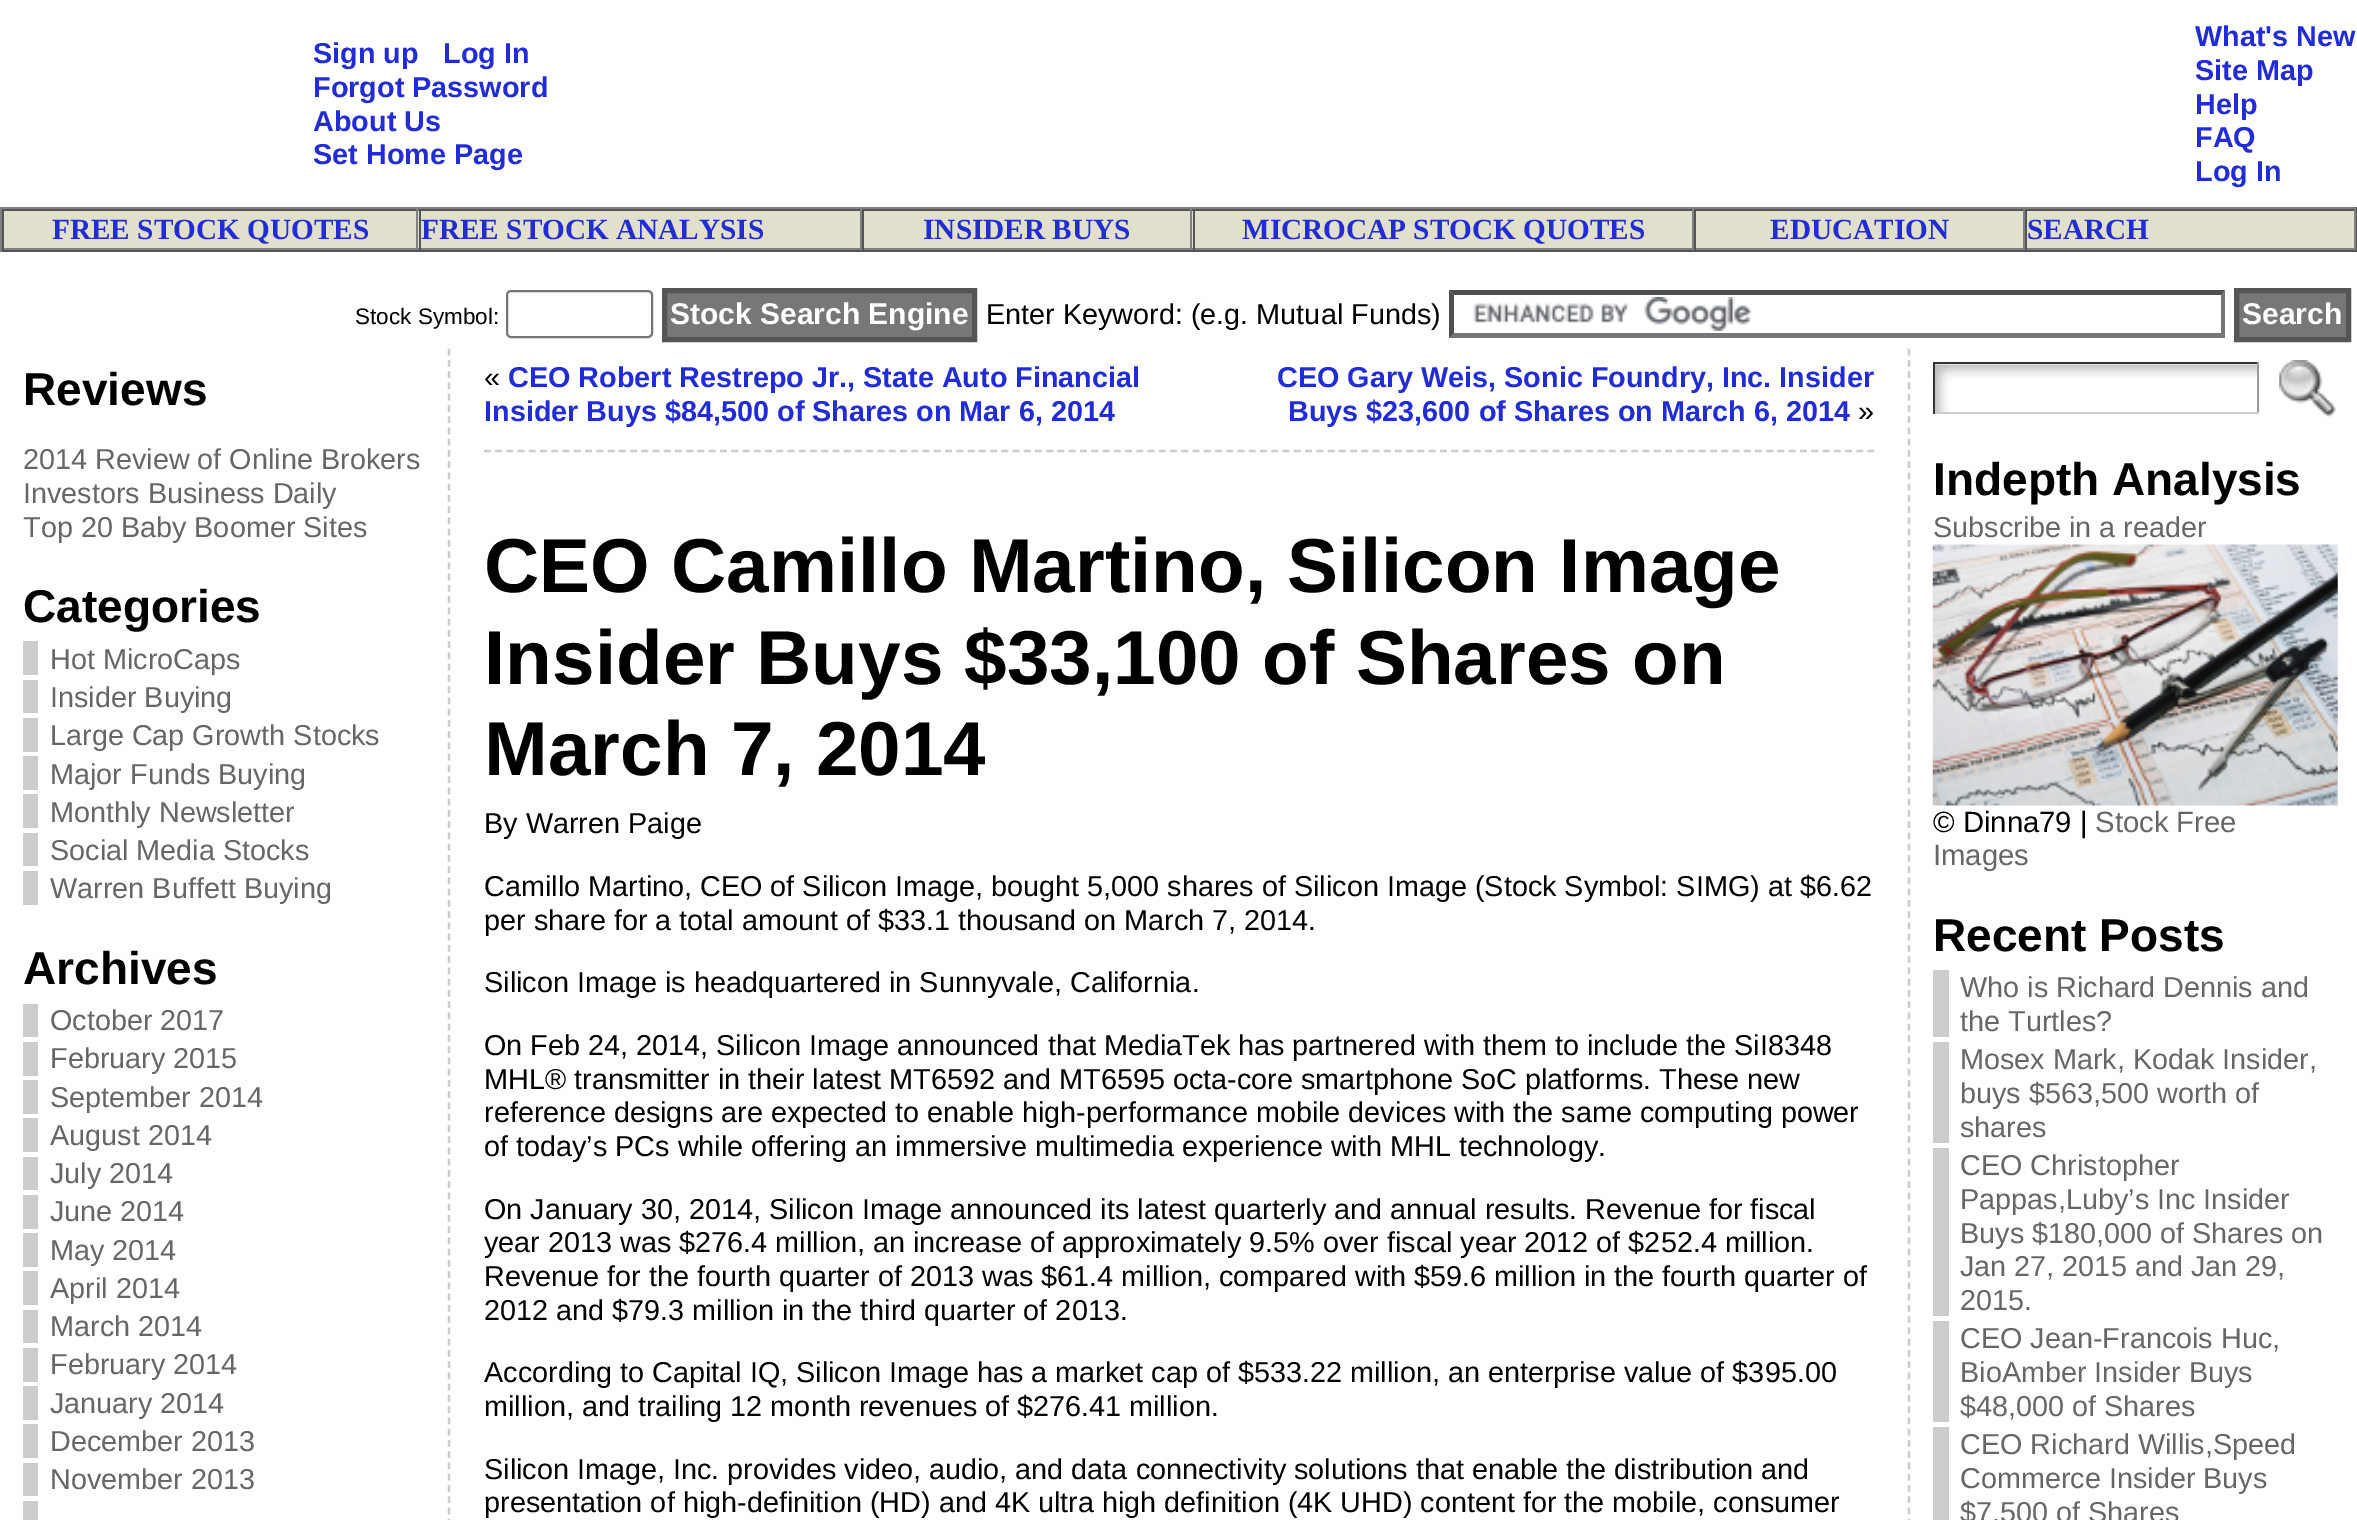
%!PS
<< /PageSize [2357 1520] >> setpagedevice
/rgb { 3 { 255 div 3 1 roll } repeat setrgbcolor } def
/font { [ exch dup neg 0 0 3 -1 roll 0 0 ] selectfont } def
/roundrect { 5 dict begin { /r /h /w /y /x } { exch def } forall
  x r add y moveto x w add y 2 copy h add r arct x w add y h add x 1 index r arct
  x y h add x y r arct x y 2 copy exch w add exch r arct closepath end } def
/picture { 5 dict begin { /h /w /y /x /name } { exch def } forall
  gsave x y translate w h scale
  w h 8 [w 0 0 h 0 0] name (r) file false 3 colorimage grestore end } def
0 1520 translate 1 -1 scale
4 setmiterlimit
255 255 255 rgb
0 0 2357 1520 rectfill
[
  [4 211 2350 37 224 224 204]
  [0 207 2357 2 128 128 128]
  [2356 207 1 45 85 85 85]
  [0 250 2357 2 85 85 85]
  [0 207 2 45 128 128 128]
  [2 209 2354 2 85 85 85]
  [416 209 2 41 128 128 128]
  [2 248 417 2 128 128 128]
  [2 209 2 41 85 85 85]
  [860 209 2 41 128 128 128]
  [419 248 443 2 128 128 128]
  [419 209 2 41 85 85 85]
  [1190 209 2 41 128 128 128]
  [862 248 331 2 128 128 128]
  [862 209 2 41 85 85 85]
  [1692 209 2 41 128 128 128]
  [1193 248 501 2 128 128 128]
  [1193 209 2 41 85 85 85]
  [2023 209 2 41 128 128 128]
  [1694 248 331 2 128 128 128]
  [1694 209 2 41 85 85 85]
  [2354 209 2 41 128 128 128]
  [2025 248 331 2 128 128 128]
  [2025 209 2 41 85 85 85]
] { aload pop rgb rectfill } forall
204 204 204 rgb
2.2 setlinewidth
[6.75 4.5] 0 setdash
449 337.5 moveto 449 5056 lineto stroke
1909 337.5 moveto 1909 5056 lineto stroke
255 255 255 rgb
447 337 1464 7 rectfill
118 118 118 rgb
2 setlinewidth
[] 0 setdash
507 291 145 46 4 roundrect stroke
119 119 119 rgb
664.5 290.5 moveto 974.5 290.5 lineto 974.5 339.5 lineto 664.5 339.5 lineto closepath gsave fill grestore
85 85 85 rgb
5 setlinewidth
stroke
(img/1.rgb) 1473 297 278 34 picture
79 79 79 rgb
1449 290 moveto 2225 290 lineto 2221 295 lineto 1454 295 lineto closepath fill
118 118 118 rgb
2225 290 moveto 2225 338 lineto 2221 333 lineto 2221 295 lineto closepath fill
2225 338 moveto 1449 338 lineto 1454 333 lineto 2221 333 lineto closepath fill
79 79 79 rgb
1449 338 moveto 1449 290 lineto 1454 295 lineto 1454 333 lineto closepath fill
119 119 119 rgb
2236.5 290.5 moveto 2348.5 290.5 lineto 2348.5 339.5 lineto 2236.5 339.5 lineto closepath gsave fill grestore
85 85 85 rgb
stroke
[
  [23 641 15 34 204 204 204]
  [23 680 15 33 204 204 204]
  [23 718 15 34 204 204 204]
  [23 756 15 34 204 204 204]
  [23 794 15 34 204 204 204]
  [23 833 15 33 204 204 204]
  [23 871 15 34 204 204 204]
  [23 1004 15 33 204 204 204]
  [23 1042 15 34 204 204 204]
  [23 1080 15 34 204 204 204]
  [23 1118 15 34 204 204 204]
  [23 1157 15 33 204 204 204]
  [23 1195 15 34 204 204 204]
  [23 1233 15 34 204 204 204]
  [23 1271 15 34 204 204 204]
  [23 1310 15 33 204 204 204]
  [23 1348 15 34 204 204 204]
  [23 1386 15 34 204 204 204]
  [23 1424 15 34 204 204 204]
  [23 1463 15 33 204 204 204]
  [23 1501 15 19 204 204 204]
] { aload pop rgb rectfill } forall
2.2 setlinewidth
[6.75 4.5] 0 setdash
484 451 moveto 1874 451 lineto stroke
(img/2.rgb) 1935 364 322 48 picture
[
  [1933 362 326 2 51 51 51]
  [2257 362 2 52 153 153 153]
  [1933 412 326 2 204 204 204]
  [1933 362 2 52 51 51 51]
] { aload pop rgb rectfill } forall
(img/3.rgb) 2279 360 57 57 picture
(img/4.rgb) 1932 544 406 262 picture
[
  [1933 970 16 67 204 204 204]
  [1933 1042 16 101 204 204 204]
  [1933 1148 16 168 204 204 204]
  [1933 1321 16 101 204 204 204]
  [1933 1427 16 93 204 204 204]
] { aload pop rgb rectfill } forall
/LiberationSans-Bold 28.8 font
34 44 212 rgb
[
  [(Sign up) 313 63]
  [(Log In) 443 63]
  [(Forgot Password) 313 97]
  [(About Us) 313 131]
  [(Set Home Page) 313 164]
  [(What's New) 2195 46]
  [(Site Map) 2195 80]
  [(Help) 2195 114]
  [(FAQ) 2195 147]
  [(Log In) 2195 181]
] { aload pop moveto show } forall
/LiberationSerif-Bold 29.25 font
[
  [(FREE STOCK QUOTES) 52 239]
  [(FREE STOCK ANALYSIS) 421 239]
  [(INSIDER BUYS) 923 239]
  [(MICROCAP STOCK QUOTES) 1242 239]
  [(EDUCATION) 1770 239]
  [(SEARCH) 2027 239]
] { aload pop moveto show } forall
/LiberationSans-Regular 22.5 font
0 0 0 rgb
355 324 moveto (Stock Symbol:) show
/LiberationSans-Bold 30 font
255 255 255 rgb
670 324 moveto (Stock Search Engine) show
/LiberationSans-Regular 28.8 font
0 0 0 rgb
986 324 moveto (Enter Keyword: \(e.g. Mutual Funds\)) show
/LiberationSans-Bold 30 font
255 255 255 rgb
2242 324 moveto (Search) show
/LiberationSans-Bold 46 font
0 0 0 rgb
23 405 moveto (Reviews) show
/LiberationSans-Regular 28.8 font
102 102 102 rgb
[
  [(2014 Review of Online Brokers) 23 469]
  [(Investors Business Daily) 23 503]
  [(Top 20 Baby Boomer Sites) 23 537]
] { aload pop moveto show } forall
/LiberationSans-Bold 46 font
0 0 0 rgb
23 622 moveto (Categories) show
/LiberationSans-Regular 28.8 font
102 102 102 rgb
[
  [(Hot MicroCaps) 50 669]
  [(Insider Buying) 50 707]
  [(Large Cap Growth Stocks) 50 745]
  [(Major Funds Buying) 50 784]
  [(Monthly Newsletter) 50 822]
  [(Social Media Stocks) 50 860]
  [(Warren Buffett Buying) 50 898]
] { aload pop moveto show } forall
/LiberationSans-Bold 46 font
0 0 0 rgb
23 984 moveto (Archives) show
/LiberationSans-Regular 28.8 font
102 102 102 rgb
[
  [(October 2017) 50 1030]
  [(February 2015) 50 1068]
  [(September 2014) 50 1107]
  [(August 2014) 50 1145]
  [(July 2014) 50 1183]
  [(June 2014) 50 1221]
  [(May 2014) 50 1260]
  [(April 2014) 50 1298]
  [(March 2014) 50 1336]
  [(February 2014) 50 1374]
  [(January 2014) 50 1413]
  [(December 2013) 50 1451]
  [(November 2013) 50 1489]
] { aload pop moveto show } forall
0 0 0 rgb
484 387 moveto («) show
/LiberationSans-Bold 28.8 font
34 44 212 rgb
[
  [(CEO Robert Restrepo Jr., State Auto Financial) 508 387]
  [(Insider Buys $84,500 of Shares on Mar 6, 2014) 484 421]
  [(CEO Gary Weis, Sonic Foundry, Inc. Insider) 1277 387]
  [(Buys $23,600 of Shares on March 6, 2014) 1288 421]
] { aload pop moveto show } forall
/LiberationSans-Regular 28.8 font
0 0 0 rgb
1858 421 moveto (») show
/LiberationSans-Bold 76.5 font
[
  [(CEO Camillo Martino, Silicon Image) 484 592]
  [(Insider Buys $33,100 of Shares on) 484 684]
  [(March 7, 2014) 484 775]
] { aload pop moveto show } forall
/LiberationSans-Regular 28.8 font
[
  [(By Warren Paige) 484 833]
  [(Camillo Martino, CEO of Silicon Image, bought 5,000 shares of Silicon Image \(Stock Symbol: SIMG\) at $6.62) 484 896]
  [(per share for a total amount of $33.1 thousand on March 7, 2014.) 484 930]
  [(Silicon Image is headquartered in Sunnyvale, California.) 484 992]
  [(On Feb 24, 2014, Silicon Image announced that MediaTek has partnered with them to include the SiI8348) 484 1055]
  [(MHL® transmitter in their latest MT6592 and MT6595 octa-core smartphone SoC platforms. These new) 484 1089]
  [(reference designs are expected to enable high-performance mobile devices with the same computing power) 484 1122]
  [(of today’s PCs while offering an immersive multimedia experience with MHL technology.) 484 1156]
  [(On January 30, 2014, Silicon Image announced its latest quarterly and annual results. Revenue for fiscal) 484 1219]
  [(year 2013 was $276.4 million, an increase of approximately 9.5% over fiscal year 2012 of $252.4 million.) 484 1252]
  [(Revenue for the fourth quarter of 2013 was $61.4 million, compared with $59.6 million in the fourth quarter of) 484 1286]
  [(2012 and $79.3 million in the third quarter of 2013.) 484 1320]
  [(According to Capital IQ, Silicon Image has a market cap of $533.22 million, an enterprise value of $395.00) 484 1382]
  [(million, and trailing 12 month revenues of $276.41 million.) 484 1416]
  [(Silicon Image, Inc. provides video, audio, and data connectivity solutions that enable the distribution and) 484 1479]
  [(presentation of high-definition \(HD\) and 4K ultra high definition \(4K UHD\) content for the mobile, consumer) 484 1512]
] { aload pop moveto show } forall
/LiberationSans-Bold 46 font
1933 495 moveto (Indepth Analysis) show
/LiberationSans-Regular 28.8 font
102 102 102 rgb
1933 537 moveto (Subscribe in a reader) show
/LiberationSans-Regular 29.25 font
0 0 0 rgb
1933 832 moveto (© Dinna79 |) show
102 102 102 rgb
2095 832 moveto (Stock Free) show
1933 865 moveto (Images) show
/LiberationSans-Bold 46 font
0 0 0 rgb
1933 951 moveto (Recent Posts) show
/LiberationSans-Regular 28.8 font
102 102 102 rgb
[
  [(Who is Richard Dennis and) 1960 997]
  [(the Turtles?) 1960 1031]
  [(Mosex Mark, Kodak Insider,) 1960 1069]
  [(buys $563,500 worth of) 1960 1103]
  [(shares) 1960 1137]
  [(CEO Christopher) 1960 1175]
  [(Pappas,Luby’s Inc Insider) 1960 1209]
  [(Buys $180,000 of Shares on) 1960 1243]
  [(Jan 27, 2015 and Jan 29,) 1960 1276]
  [(2015.) 1960 1310]
  [(CEO Jean-Francois Huc,) 1960 1348]
  [(BioAmber Insider Buys) 1960 1382]
  [($48,000 of Shares) 1960 1416]
  [(CEO Richard Willis,Speed) 1960 1454]
  [(Commerce Insider Buys) 1960 1488]
  [($7,500 of Shares) 1960 1522]
] { aload pop moveto show } forall
showpage
